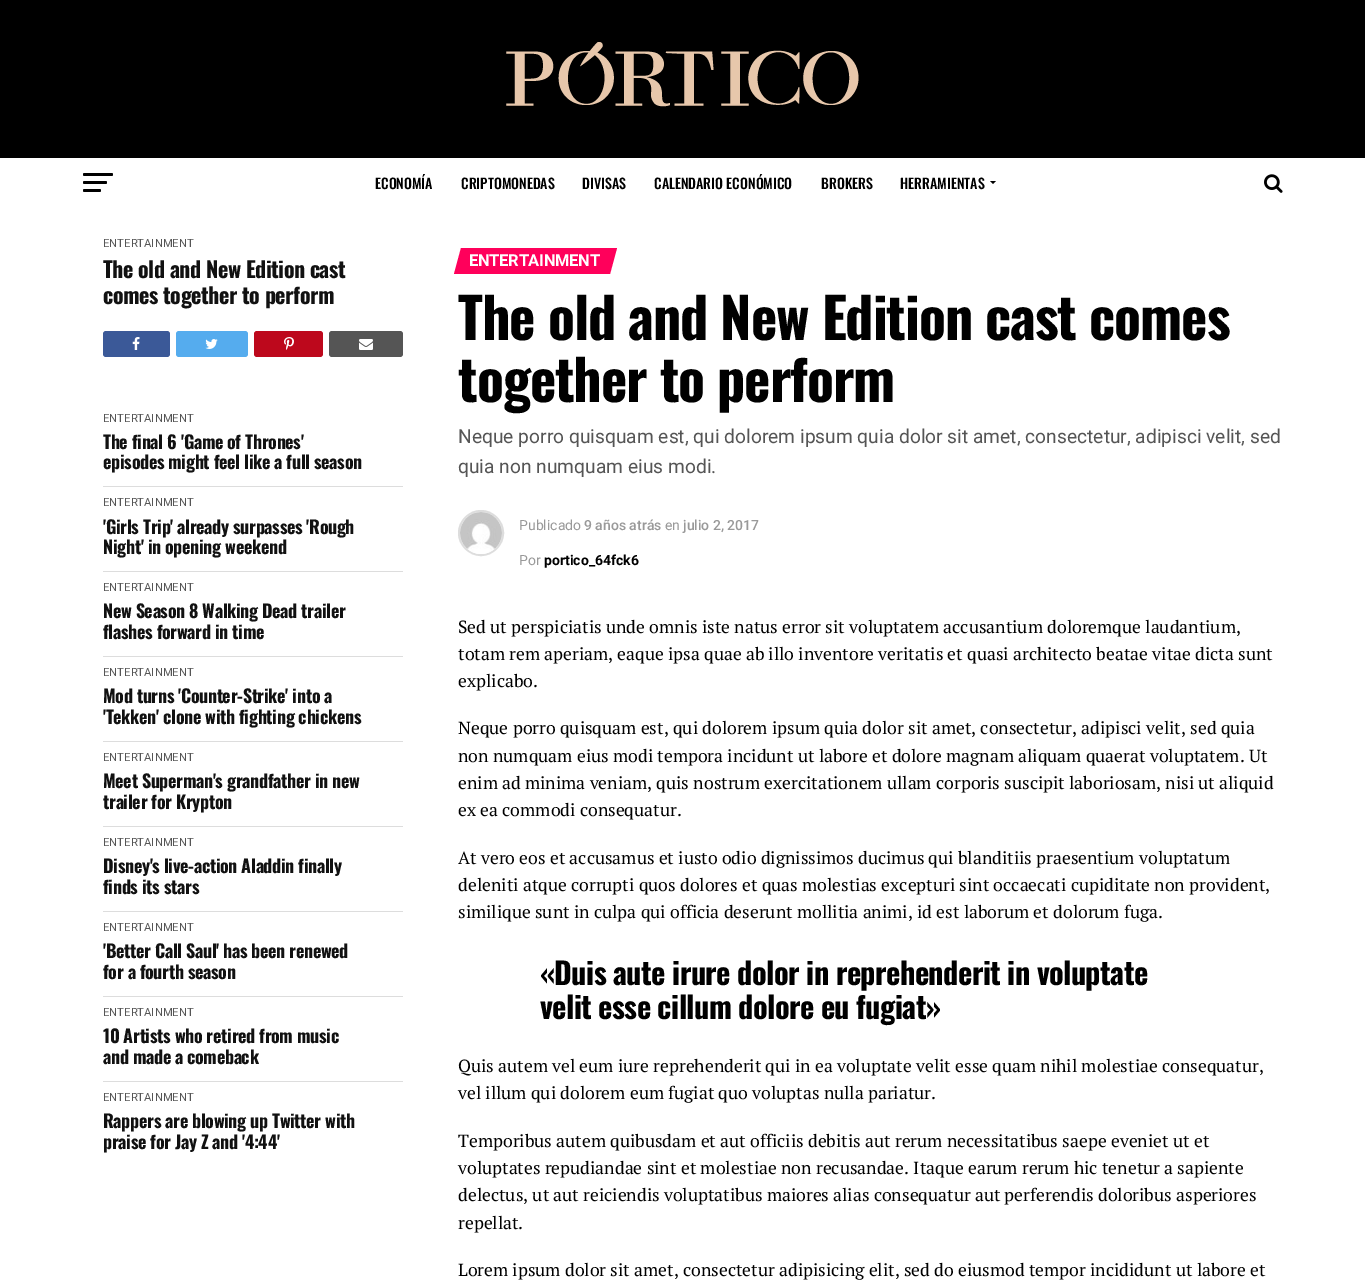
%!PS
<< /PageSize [1365 1284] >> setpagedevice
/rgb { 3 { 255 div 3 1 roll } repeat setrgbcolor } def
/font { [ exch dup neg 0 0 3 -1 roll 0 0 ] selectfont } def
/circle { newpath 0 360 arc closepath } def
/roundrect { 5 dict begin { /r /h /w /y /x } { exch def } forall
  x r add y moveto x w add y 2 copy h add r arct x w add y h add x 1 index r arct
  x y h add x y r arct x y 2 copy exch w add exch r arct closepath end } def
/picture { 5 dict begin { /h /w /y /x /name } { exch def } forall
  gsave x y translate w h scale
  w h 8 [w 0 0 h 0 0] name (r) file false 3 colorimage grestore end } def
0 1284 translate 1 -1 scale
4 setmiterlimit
255 255 255 rgb
0 0 1365 1284 rectfill
0 0 0 rgb
0 0 1365 158 rectfill
(img/1.rgb) 506 42 353 65 picture
83 173 30 3 1.5 roundrect fill
83 181 24 3 1.5 roundrect fill
83 189 18 3 1.5 roundrect fill
990 181 moveto 996 181 lineto 993 184 lineto closepath fill
(img/2.rgb) 1264 174 19 19 picture
59 89 152 rgb
103 331 67 26 3 roundrect fill
(img/3.rgb) 132 337 8 13 picture
85 172 238 rgb
176 331 72 26 3 roundrect fill
(img/4.rgb) 205 339 13 10 picture
189 8 28 rgb
254 331 69 26 3 roundrect fill
(img/5.rgb) 284 337 10 13 picture
85 85 85 rgb
329 331 74 26 3 roundrect fill
(img/6.rgb) 359 339 14 11 picture
[
  [103 486 300 1 221 221 221]
  [103 571 300 1 221 221 221]
  [103 656 300 1 221 221 221]
  [103 741 300 1 221 221 221]
  [103 826 300 1 221 221 221]
  [103 911 300 1 221 221 221]
  [103 996 300 1 221 221 221]
  [103 1081 300 1 221 221 221]
] { aload pop rgb rectfill } forall
255 0 91 rgb
461 248 moveto 617 248 lineto 610 274 lineto 454 274 lineto closepath fill
221 221 221 rgb
2 setlinewidth
481 533 22 circle stroke
(img/7.rgb) 460 512 42 42 picture
/Oswald-Medium 14 font
0 0 0 rgb
[
  [(ECONOMÍA) 375 189]
  [(CRIPTOMONEDAS) 461 189]
  [(DIVISAS) 582 189]
  [(CALENDARIO ECONÓMICO) 654 189]
  [(BROKERS) 821 189]
  [(HERRAMIENTAS) 900 189]
] { aload pop moveto show } forall
/Roboto-Regular 11.25 font
85 85 85 rgb
103 247 moveto (ENTERTAINMENT) show
/Oswald-Bold 22 font
17 17 17 rgb
103 278 moveto -0.45 0 (The old and New Edition cast) ashow
103 304 moveto -0.45 0 (comes together to perform) ashow
/Roboto-Regular 11.25 font
85 85 85 rgb
103 422 moveto (ENTERTAINMENT) show
/Oswald-Bold 18 font
17 17 17 rgb
103 449 moveto -0.35 0 (The final 6 'Game of Thrones') ashow
103 469 moveto -0.35 0 (episodes might feel like a full season) ashow
/Roboto-Regular 11.25 font
85 85 85 rgb
103 506 moveto (ENTERTAINMENT) show
/Oswald-Bold 18 font
17 17 17 rgb
103 534 moveto -0.35 0 ('Girls Trip' already surpasses 'Rough) ashow
103 554 moveto -0.35 0 (Night' in opening weekend) ashow
/Roboto-Regular 11.25 font
85 85 85 rgb
103 591 moveto (ENTERTAINMENT) show
/Oswald-Bold 18 font
17 17 17 rgb
103 618 moveto -0.35 0 (New Season 8 Walking Dead trailer) ashow
103 639 moveto -0.35 0 (flashes forward in time) ashow
/Roboto-Regular 11.25 font
85 85 85 rgb
103 676 moveto (ENTERTAINMENT) show
/Oswald-Bold 18 font
17 17 17 rgb
103 703 moveto -0.35 0 (Mod turns 'Counter-Strike' into a) ashow
103 724 moveto -0.35 0 ('Tekken' clone with fighting chickens) ashow
/Roboto-Regular 11.25 font
85 85 85 rgb
103 761 moveto (ENTERTAINMENT) show
/Oswald-Bold 18 font
17 17 17 rgb
103 788 moveto -0.35 0 (Meet Superman's grandfather in new) ashow
103 809 moveto -0.35 0 (trailer for Krypton) ashow
/Roboto-Regular 11.25 font
85 85 85 rgb
103 846 moveto (ENTERTAINMENT) show
/Oswald-Bold 18 font
17 17 17 rgb
103 873 moveto -0.35 0 (Disney's live-action Aladdin finally) ashow
103 894 moveto -0.35 0 (finds its stars) ashow
/Roboto-Regular 11.25 font
85 85 85 rgb
103 931 moveto (ENTERTAINMENT) show
/Oswald-Bold 18 font
17 17 17 rgb
103 958 moveto -0.35 0 ('Better Call Saul' has been renewed) ashow
103 979 moveto -0.35 0 (for a fourth season) ashow
/Roboto-Regular 11.25 font
85 85 85 rgb
103 1016 moveto (ENTERTAINMENT) show
/Oswald-Bold 18 font
17 17 17 rgb
103 1043 moveto -0.35 0 (10 Artists who retired from music) ashow
103 1064 moveto -0.35 0 (and made a comeback) ashow
/Roboto-Regular 11.25 font
85 85 85 rgb
103 1101 moveto (ENTERTAINMENT) show
/Oswald-Bold 18 font
17 17 17 rgb
103 1128 moveto -0.35 0 (Rappers are blowing up Twitter with) ashow
103 1149 moveto -0.35 0 (praise for Jay Z and '4:44') ashow
/Roboto-Bold 16.5 font
255 255 255 rgb
469 266 moveto -0.3 0 (ENTERTAINMENT) ashow
/Oswald-Bold 56 font
0 0 0 rgb
458 340 moveto -1.1 0 (The old and New Edition cast comes) ashow
458 402 moveto -1.1 0 (together to perform) ashow
/Roboto-Regular 19.2 font
85 85 85 rgb
458 443 moveto (Neque porro quisquam est, qui dolorem ipsum quia dolor sit amet, consectetur, adipisci velit, sed) show
458 473 moveto (quia non numquam eius modi.) show
/Roboto-Regular 14 font
153 153 153 rgb
519 530 moveto (Publicado) show
/Roboto-Medium 14 font
584 530 moveto (9 años atrás) show
/Roboto-Regular 14 font
665 530 moveto (en) show
/Roboto-Medium 14 font
683 530 moveto (julio 2, 2017) show
/Roboto-Regular 14 font
519 565 moveto (Por) show
/Roboto-Bold 14 font
0 0 0 rgb
544 565 moveto (portico_64fck6) show
/PTSerif-Regular 17.6 font
[
  [(Sed ut perspiciatis unde omnis iste natus error sit voluptatem accusantium doloremque laudantium,) 458 633]
  [(totam rem aperiam, eaque ipsa quae ab illo inventore veritatis et quasi architecto beatae vitae dicta sunt) 458 660]
  [(explicabo.) 458 687]
  [(Neque porro quisquam est, qui dolorem ipsum quia dolor sit amet, consectetur, adipisci velit, sed quia) 458 734]
  [(non numquam eius modi tempora incidunt ut labore et dolore magnam aliquam quaerat voluptatem. Ut) 458 762]
  [(enim ad minima veniam, quis nostrum exercitationem ullam corporis suscipit laboriosam, nisi ut aliquid) 458 789]
  [(ex ea commodi consequatur.) 458 816]
  [(At vero eos et accusamus et iusto odio dignissimos ducimus qui blanditiis praesentium voluptatum) 458 864]
  [(deleniti atque corrupti quos dolores et quas molestias excepturi sint occaecati cupiditate non provident,) 458 891]
  [(similique sunt in culpa qui officia deserunt mollitia animi, id est laborum et dolorum fuga.) 458 918]
] { aload pop moveto show } forall
/Oswald-Bold 30.4 font
540 985 moveto -0.6 0 («Duis aute irure dolor in reprehenderit in voluptate) ashow
540 1019 moveto -0.6 0 (velit esse cillum dolore eu fugiat») ashow
/PTSerif-Regular 17.6 font
[
  [(Quis autem vel eum iure reprehenderit qui in ea voluptate velit esse quam nihil molestiae consequatur,) 458 1072]
  [(vel illum qui dolorem eum fugiat quo voluptas nulla pariatur.) 458 1099]
  [(Temporibus autem quibusdam et aut officiis debitis aut rerum necessitatibus saepe eveniet ut et) 458 1147]
  [(voluptates repudiandae sint et molestiae non recusandae. Itaque earum rerum hic tenetur a sapiente) 458 1174]
  [(delectus, ut aut reiciendis voluptatibus maiores alias consequatur aut perferendis doloribus asperiores) 458 1201]
  [(repellat.) 458 1229]
  [(Lorem ipsum dolor sit amet, consectetur adipisicing elit, sed do eiusmod tempor incididunt ut labore et) 458 1276]
] { aload pop moveto show } forall
showpage
